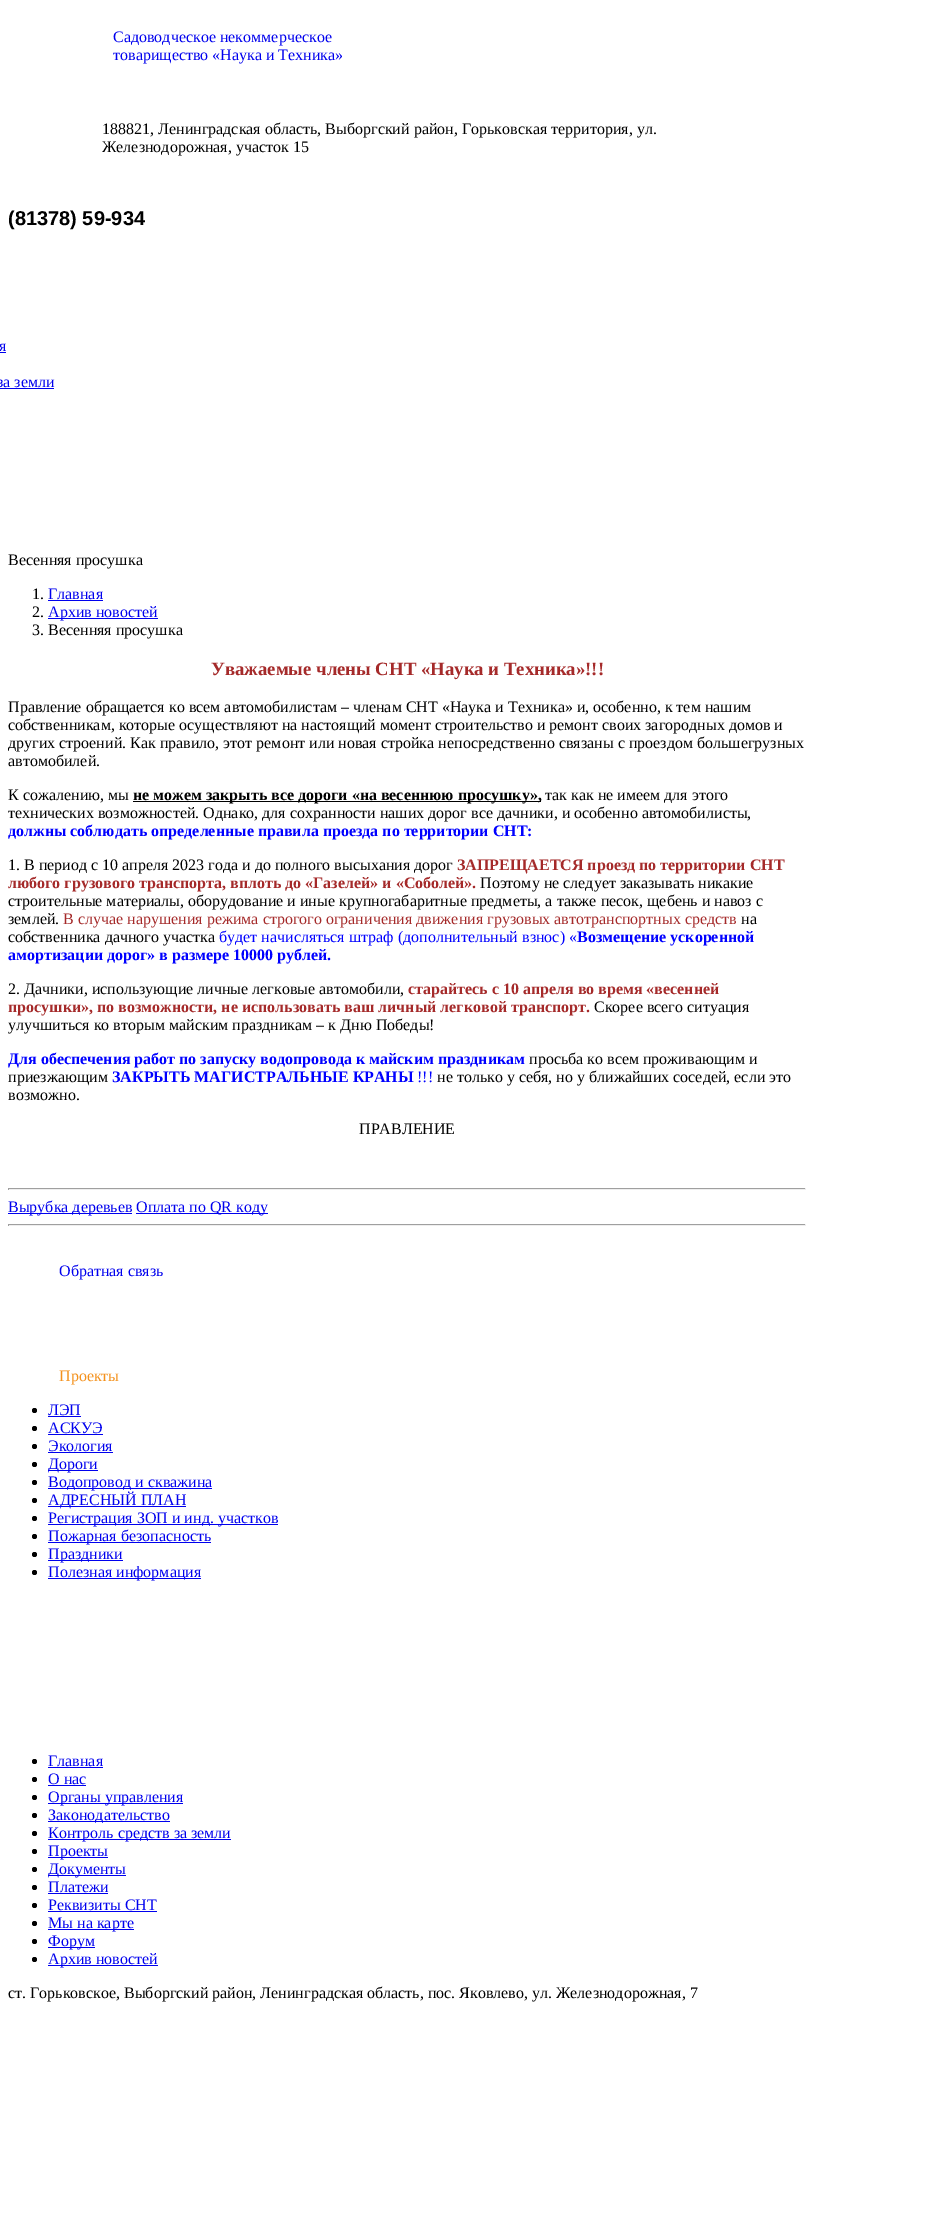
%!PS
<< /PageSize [925 2220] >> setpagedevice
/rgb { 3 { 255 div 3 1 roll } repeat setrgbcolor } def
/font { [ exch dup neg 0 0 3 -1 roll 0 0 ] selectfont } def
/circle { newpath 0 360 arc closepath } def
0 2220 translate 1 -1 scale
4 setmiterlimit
255 255 255 rgb
0 0 925 2220 rectfill
[
  [0 352 6 1 0 0 238]
  [0 388 54 1 0 0 238]
  [48 600 55 1 0 0 238]
  [48 618 110 1 0 0 238]
  [133 801 408 1 0 0 0]
  [8 1188 798 1 159 159 159]
  [805 1188 1 2 238 238 238]
  [8 1189 798 1 238 238 238]
  [8 1188 1 2 159 159 159]
  [8 1213 124 1 0 0 238]
  [136 1213 132 1 0 0 238]
  [8 1224 798 1 159 159 159]
  [805 1224 1 2 238 238 238]
  [8 1225 798 1 238 238 238]
  [8 1224 1 2 159 159 159]
] { aload pop rgb rectfill } forall
0 0 0 rgb
34.5 1410.5 2.5 circle fill
0 0 238 rgb
48 1416 33 1 rectfill
0 0 0 rgb
34.5 1428.5 2.5 circle fill
0 0 238 rgb
48 1434 55 1 rectfill
0 0 0 rgb
34.5 1446.5 2.5 circle fill
0 0 238 rgb
48 1452 65 1 rectfill
0 0 0 rgb
34.5 1464.5 2.5 circle fill
0 0 238 rgb
48 1470 50 1 rectfill
0 0 0 rgb
34.5 1482.5 2.5 circle fill
0 0 238 rgb
48 1488 164 1 rectfill
0 0 0 rgb
34.5 1500.5 2.5 circle fill
0 0 238 rgb
48 1506 138 1 rectfill
0 0 0 rgb
34.5 1518.5 2.5 circle fill
0 0 238 rgb
48 1524 230 1 rectfill
0 0 0 rgb
34.5 1536.5 2.5 circle fill
0 0 238 rgb
48 1542 163 1 rectfill
0 0 0 rgb
34.5 1554.5 2.5 circle fill
0 0 238 rgb
48 1560 75 1 rectfill
0 0 0 rgb
34.5 1572.5 2.5 circle fill
0 0 238 rgb
48 1578 153 1 rectfill
0 0 0 rgb
34.5 1761.5 2.5 circle fill
0 0 238 rgb
48 1767 55 1 rectfill
0 0 0 rgb
34.5 1779.5 2.5 circle fill
0 0 238 rgb
48 1785 38 1 rectfill
0 0 0 rgb
34.5 1797.5 2.5 circle fill
0 0 238 rgb
48 1803 135 1 rectfill
0 0 0 rgb
34.5 1815.5 2.5 circle fill
0 0 238 rgb
48 1821 122 1 rectfill
0 0 0 rgb
34.5 1833.5 2.5 circle fill
0 0 238 rgb
48 1839 183 1 rectfill
0 0 0 rgb
34.5 1851.5 2.5 circle fill
0 0 238 rgb
48 1857 60 1 rectfill
0 0 0 rgb
34.5 1869.5 2.5 circle fill
0 0 238 rgb
48 1875 78 1 rectfill
0 0 0 rgb
34.5 1887.5 2.5 circle fill
0 0 238 rgb
48 1893 60 1 rectfill
0 0 0 rgb
34.5 1905.5 2.5 circle fill
0 0 238 rgb
48 1911 109 1 rectfill
0 0 0 rgb
34.5 1923.5 2.5 circle fill
0 0 238 rgb
48 1929 86 1 rectfill
0 0 0 rgb
34.5 1941.5 2.5 circle fill
0 0 238 rgb
48 1947 47 1 rectfill
0 0 0 rgb
34.5 1959.5 2.5 circle fill
0 0 238 rgb
48 1965 110 1 rectfill
/LiberationSerif-Regular 16 font
113 42 moveto (Садоводческое некоммерческое) show
113 60 moveto (товарищество «Наука и Техника») show
0 0 0 rgb
102 134 moveto (188821, Ленинградская область, Выборгский район, Горьковская территория, ул.) show
102 152 moveto (Железнодорожная, участок 15) show
/LiberationSans-Bold 20 font
8 225 moveto (\(81378\) 59-934) show
/LiberationSerif-Regular 16 font
0 0 238 rgb
-1 351 moveto (я) show
-3 387 moveto (за земли) show
0 0 0 rgb
8 565 moveto (Весенняя просушка) show
32 599 moveto (1.) show
0 0 238 rgb
48 599 moveto (Главная) show
0 0 0 rgb
32 617 moveto (2.) show
0 0 238 rgb
48 617 moveto (Архив новостей) show
0 0 0 rgb
32 635 moveto (3. Весенняя просушка) show
/LiberationSerif-Bold 18.75 font
165 42 42 rgb
211 675 moveto (Уважаемые члены СНТ «Наука и Техника»!!!) show
/LiberationSerif-Regular 16 font
0 0 0 rgb
[
  [(Правление обращается ко всем автомобилистам – членам СНТ «Наука и Техника» и, особенно, к тем нашим) 8 712]
  [(собственникам, которые осуществляют на настоящий момент строительство и ремонт своих загородных домов и) 8 730]
  [(других строений. Как правило, этот ремонт или новая стройка непосредственно связаны с проездом большегрузных) 8 748]
  [(автомобилей.) 8 766]
  [(К сожалению, мы) 8 800]
] { aload pop moveto show } forall
/LiberationSerif-Bold 16 font
133 800 moveto (не можем закрыть все дороги «на весеннюю просушку»,) show
/LiberationSerif-Regular 16 font
545 800 moveto (так как не имеем для этого) show
8 818 moveto (технических возможностей. Однако, для сохранности наших дорог все дачники, и особенно автомобилисты,) show
/LiberationSerif-Bold 16 font
0 0 255 rgb
8 836 moveto (должны соблюдать определенные правила проезда по территории СНТ:) show
/LiberationSerif-Regular 16 font
0 0 0 rgb
8 870 moveto (1. В период с 10 апреля 2023 года и до полного высыхания дорог) show
/LiberationSerif-Bold 16 font
165 42 42 rgb
457 870 moveto (ЗАПРЕЩАЕТСЯ проезд по территории СНТ) show
8 888 moveto (любого грузового транспорта, вплоть до «Газелей» и «Соболей».) show
/LiberationSerif-Regular 16 font
0 0 0 rgb
[
  [(Поэтому не следует заказывать никакие) 480 888]
  [(строительные материалы, оборудование и иные крупногабаритные предметы, а также песок, щебень и навоз с) 8 906]
  [(землей.) 8 924]
] { aload pop moveto show } forall
165 42 42 rgb
63 924 moveto (В случае нарушения режима строгого ограничения движения грузовых автотранспортных средств) show
0 0 0 rgb
741 924 moveto (на) show
8 942 moveto (собственника дачного участка) show
0 0 255 rgb
219 942 moveto (будет начисляться штраф \(дополнительный взнос\) «) show
/LiberationSerif-Bold 16 font
577 942 moveto (Возмещение ускоренной) show
8 960 moveto (амортизации дорог» в размере 10000 рублей.) show
/LiberationSerif-Regular 16 font
0 0 0 rgb
8 994 moveto (2. Дачники, использующие личные легковые автомобили,) show
/LiberationSerif-Bold 16 font
165 42 42 rgb
408 994 moveto (старайтесь с 10 апреля во время «весенней) show
8 1012 moveto (просушки», по возможности, не использовать ваш личный легковой транспорт.) show
/LiberationSerif-Regular 16 font
0 0 0 rgb
594 1012 moveto (Скорее всего ситуация) show
8 1030 moveto (улучшиться ко вторым майским праздникам – к Дню Победы!) show
/LiberationSerif-Bold 16 font
0 0 255 rgb
8 1064 moveto (Для обеспечения работ по запуску водопровода к майским праздникам) show
/LiberationSerif-Regular 16 font
0 0 0 rgb
529 1064 moveto (просьба ко всем проживающим и) show
8 1082 moveto (приезжающим) show
/LiberationSerif-Bold 16 font
0 0 255 rgb
112 1082 moveto (ЗАКРЫТЬ МАГИСТРАЛЬНЫЕ КРАНЫ) show
/LiberationSerif-Regular 16 font
417 1082 moveto (!!!) show
0 0 0 rgb
[
  [(не только у себя, но у ближайших соседей, если это) 437 1082]
  [(возможно.) 8 1100]
  [(ПРАВЛЕНИЕ) 359 1134]
] { aload pop moveto show } forall
0 0 238 rgb
[
  [(Вырубка деревьев) 8 1212]
  [(Оплата по QR коду) 136 1212]
  [(Обратная связь) 59 1276]
] { aload pop moveto show } forall
244 145 28 rgb
59 1381 moveto (Проекты) show
0 0 238 rgb
[
  [(ЛЭП) 48 1415]
  [(АСКУЭ) 48 1433]
  [(Экология) 48 1451]
  [(Дороги) 48 1469]
  [(Водопровод и скважина) 48 1487]
  [(АДРЕСНЫЙ ПЛАН) 48 1505]
  [(Регистрация ЗОП и инд. участков) 48 1523]
  [(Пожарная безопасность) 48 1541]
  [(Праздники) 48 1559]
  [(Полезная информация) 48 1577]
  [(Главная) 48 1766]
  [(О нас) 48 1784]
  [(Органы управления) 48 1802]
  [(Законодательство) 48 1820]
  [(Контроль средств за земли) 48 1838]
  [(Проекты) 48 1856]
  [(Документы) 48 1874]
  [(Платежи) 48 1892]
  [(Реквизиты СНТ) 48 1910]
  [(Мы на карте) 48 1928]
  [(Форум) 48 1946]
  [(Архив новостей) 48 1964]
] { aload pop moveto show } forall
0 0 0 rgb
8 1998 moveto (ст. Горьковское, Выборгский район, Ленинградская область, пос. Яковлево, ул. Железнодорожная, 7) show
showpage
